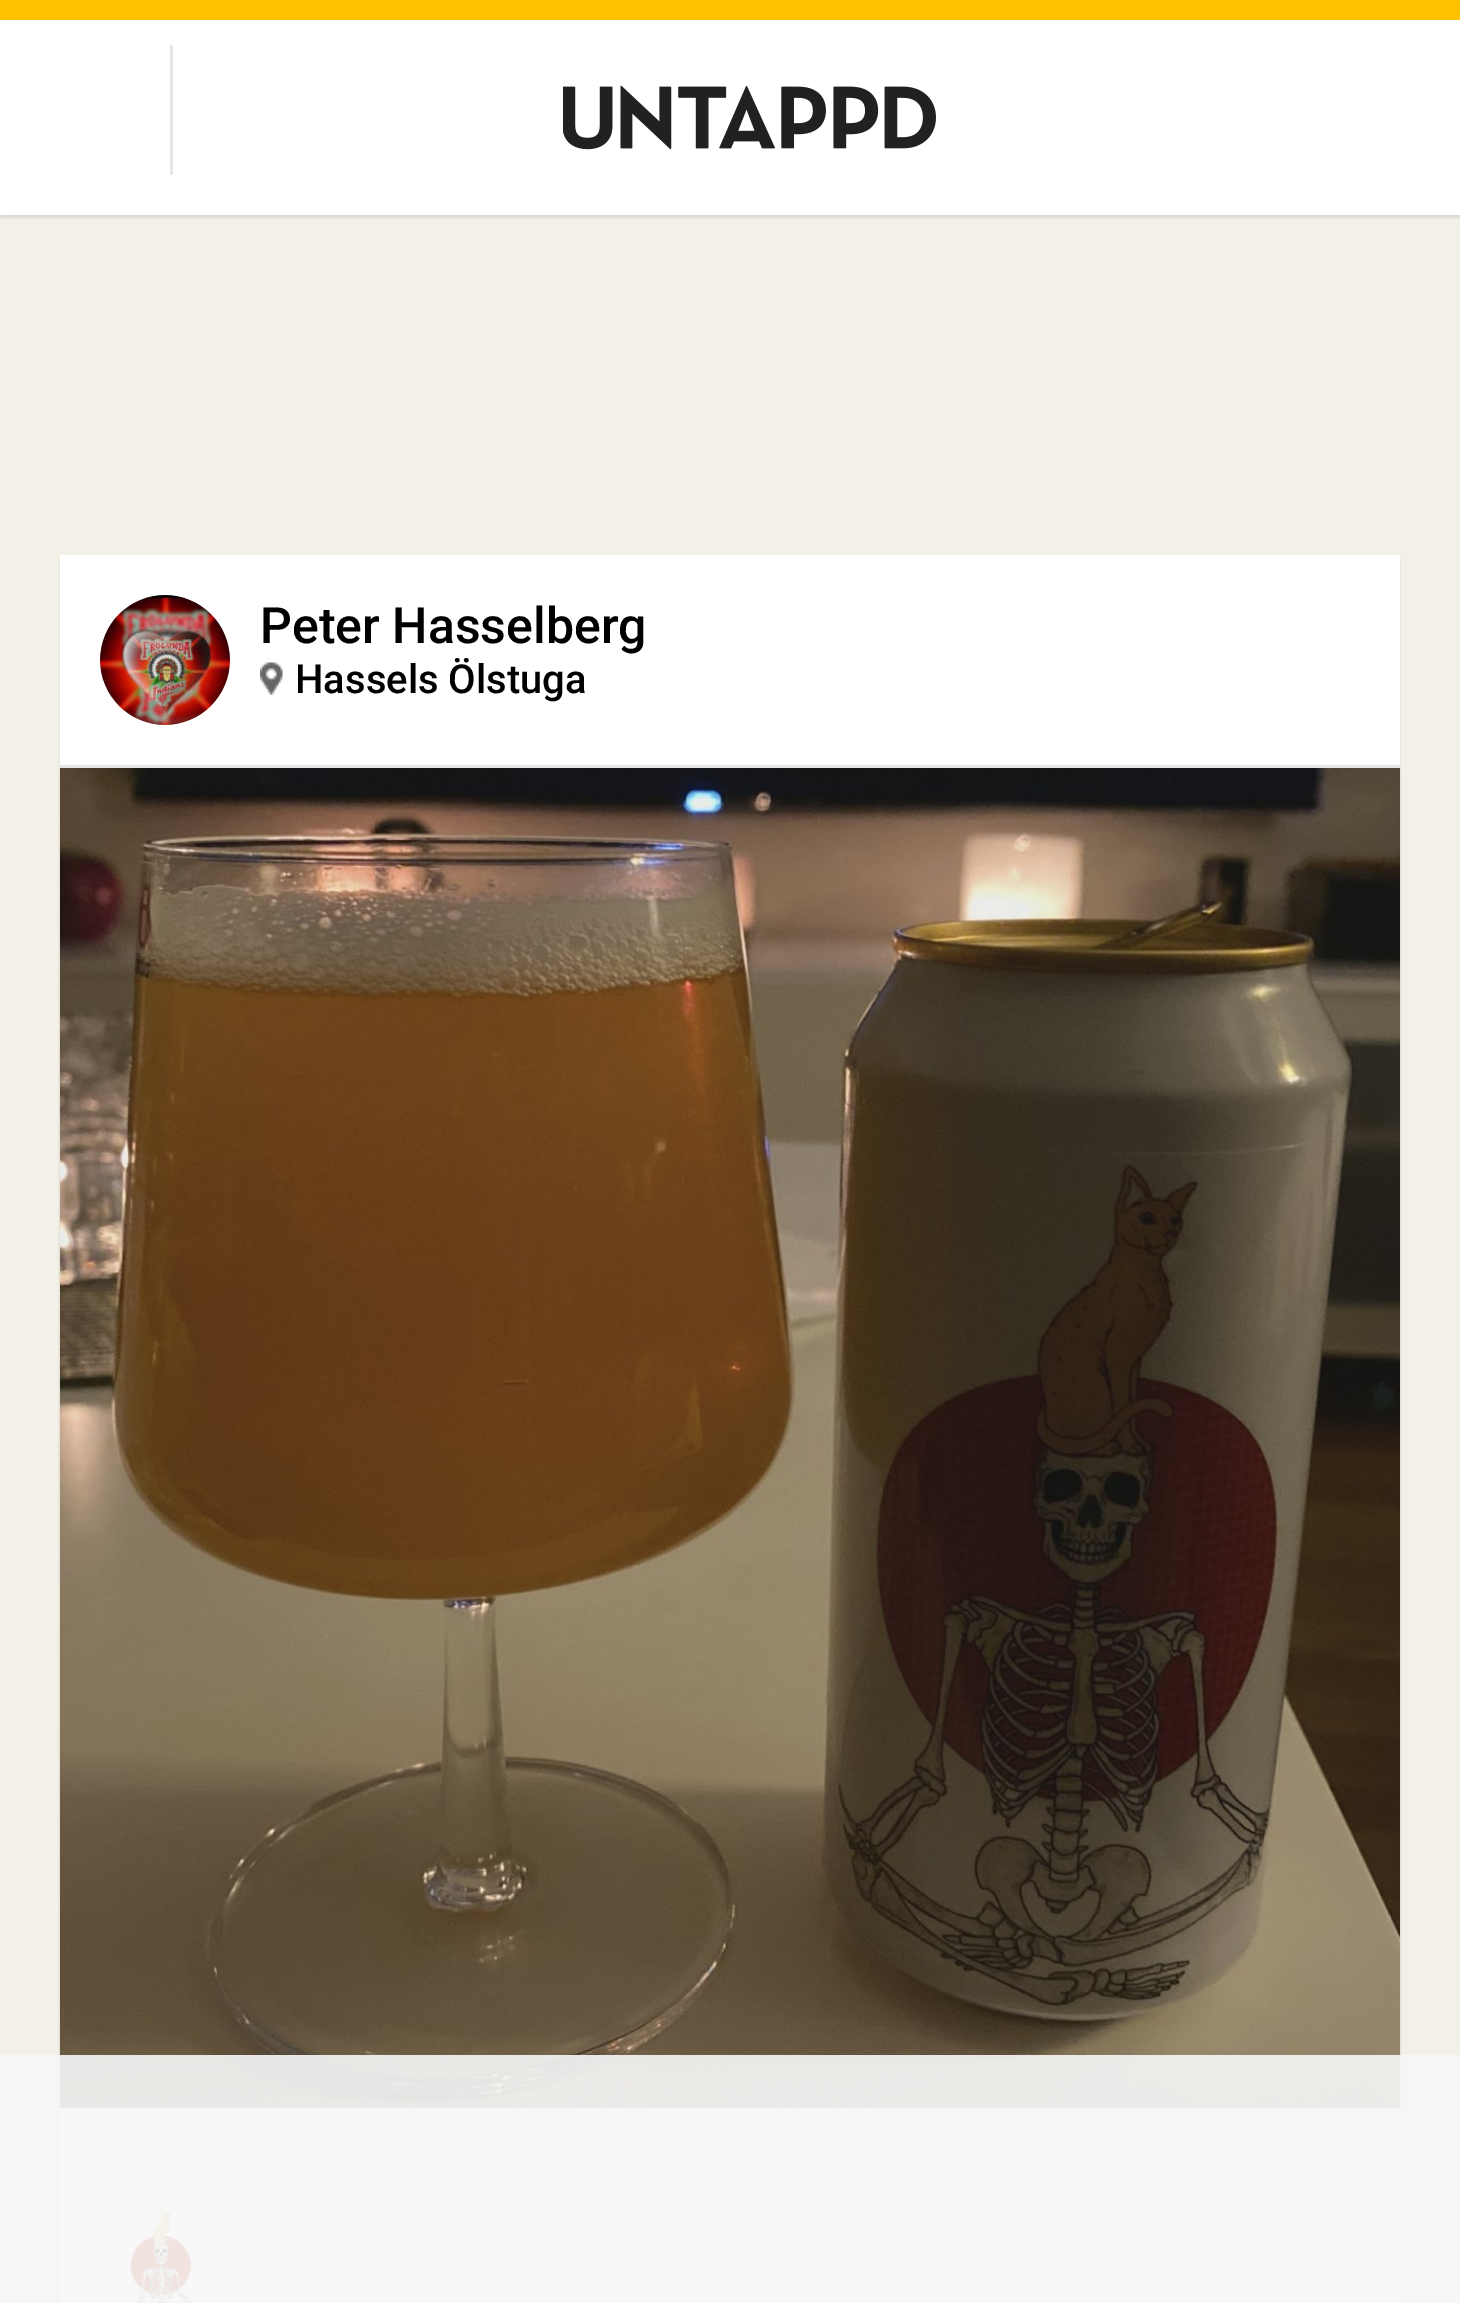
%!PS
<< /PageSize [1460 2303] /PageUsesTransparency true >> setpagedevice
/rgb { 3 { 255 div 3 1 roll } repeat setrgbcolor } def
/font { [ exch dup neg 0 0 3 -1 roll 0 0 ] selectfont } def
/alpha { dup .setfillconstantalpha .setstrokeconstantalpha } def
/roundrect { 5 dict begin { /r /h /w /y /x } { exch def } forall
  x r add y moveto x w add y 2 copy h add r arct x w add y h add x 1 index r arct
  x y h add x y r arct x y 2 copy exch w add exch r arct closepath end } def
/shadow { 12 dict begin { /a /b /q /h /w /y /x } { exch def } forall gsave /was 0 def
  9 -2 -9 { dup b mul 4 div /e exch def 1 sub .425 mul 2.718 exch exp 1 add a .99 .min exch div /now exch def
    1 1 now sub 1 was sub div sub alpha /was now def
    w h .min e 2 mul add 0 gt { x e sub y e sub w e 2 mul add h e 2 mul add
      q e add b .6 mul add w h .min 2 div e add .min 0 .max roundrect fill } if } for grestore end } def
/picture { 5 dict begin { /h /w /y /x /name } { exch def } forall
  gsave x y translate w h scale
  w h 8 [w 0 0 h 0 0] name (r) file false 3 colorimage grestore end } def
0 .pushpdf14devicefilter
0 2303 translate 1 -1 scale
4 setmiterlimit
243 240 232 rgb
0 0 1460 2303 rectfill
0 0 0 rgb
0 3 1460 215 0 1 0.1 shadow
[
  [0 20 1460 195 255 255 255]
  [0 0 1460 20 255 192 0]
  [170 45 3 130 230 230 230]
] { aload pop rgb rectfill } forall
(img/1.rgb) 563 85 373 65 picture
0 0 0 rgb
60 558 1340 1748 0 1 0.1 shadow
255 255 255 rgb
60 555 1340 1748 rectfill
230 230 230 rgb
60 765 1340 3 rectfill
(img/2.rgb) 100 595 130 130 picture
(img/3.rgb) 260 662 23 33 picture
0 0 0 rgb
60 770 1340 1340 0 1 0.1 shadow
(img/4.rgb) 60 768 1340 1340 picture
(img/5.rgb) 129 2208 65 95 picture
0.9 alpha
247 247 247 rgb
0 2055 1460 248 rectfill
/Roboto-Medium 50 font
1 alpha
0 0 0 rgb
260 643 moveto (Peter Hasselberg) show
/Roboto-Medium 40 font
295 693 moveto (Hassels Ölstuga) show
.poppdf14devicefilter showpage
